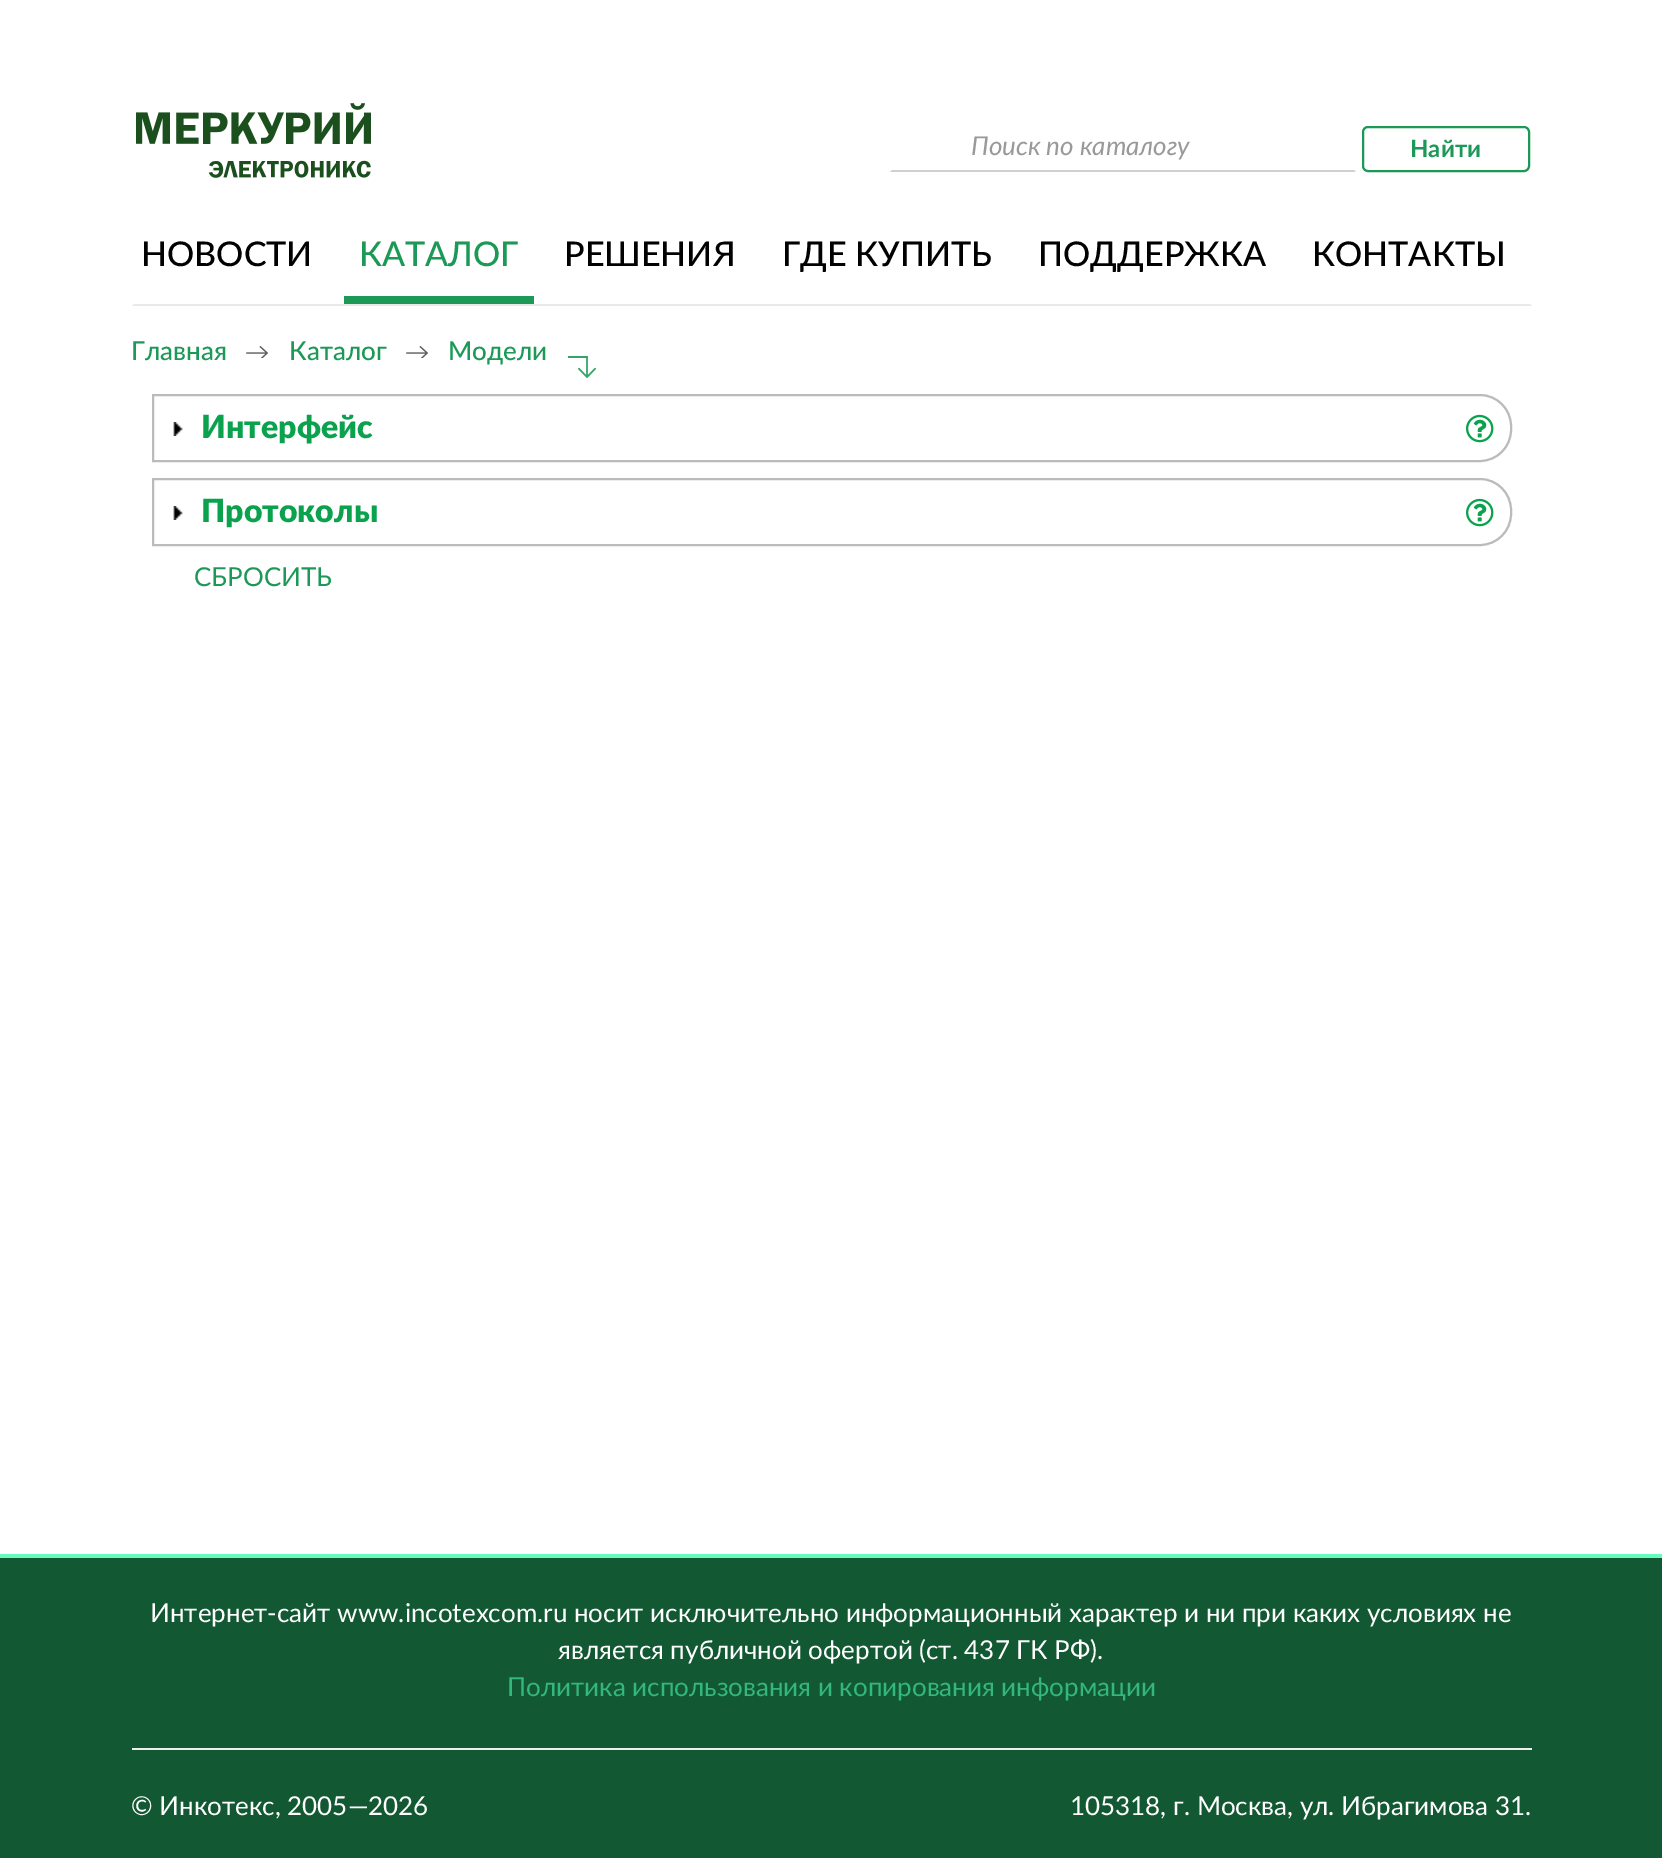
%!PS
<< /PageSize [1662 1858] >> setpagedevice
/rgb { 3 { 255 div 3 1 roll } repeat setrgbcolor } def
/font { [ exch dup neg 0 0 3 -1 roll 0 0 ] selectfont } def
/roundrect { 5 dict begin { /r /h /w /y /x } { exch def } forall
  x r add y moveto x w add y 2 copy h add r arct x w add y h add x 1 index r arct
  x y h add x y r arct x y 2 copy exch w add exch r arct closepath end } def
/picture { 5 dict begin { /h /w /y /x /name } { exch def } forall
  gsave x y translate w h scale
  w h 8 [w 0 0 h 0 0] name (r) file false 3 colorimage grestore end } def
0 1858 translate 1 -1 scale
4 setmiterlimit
255 255 255 rgb
0 0 1662 1858 rectfill
233 233 233 rgb
1532 306 moveto 132 306 lineto 134 304 lineto 1530 304 lineto closepath fill
(img/1.rgb) 136 103 235 75 picture
208 208 208 rgb
1356 172 moveto 890 172 lineto 892 170 lineto 1354 170 lineto closepath fill
28 153 86 rgb
2 setlinewidth
1363 127 166 44 5 roundrect stroke
344 296 190 8 rectfill
(img/2.rgb) 246 346 22 12 picture
(img/2.rgb) 406 346 22 12 picture
(img/3.rgb) 568 356 28 22 picture
(img/4.rgb) 173 422 10 14 picture
187 187 187 rgb
153 395 moveto 1480 395 lineto 1497 395 1511 409 1511 426 curveto 1511 430 lineto 1511 447 1497 461 1480 461 curveto 153 461 lineto closepath stroke
(img/5.rgb) 1466 414 28 29 picture
(img/4.rgb) 173 506 10 14 picture
153 479 moveto 1480 479 lineto 1497 479 1511 493 1511 510 curveto 1511 514 lineto 1511 531 1497 545 1480 545 curveto 153 545 lineto closepath stroke
(img/5.rgb) 1466 498 28 29 picture
[
  [0 1558 1662 300 18 88 51]
  [0 1554 1662 4 101 253 187]
  [132 1748 1400 2 238 238 238]
] { aload pop rgb rectfill } forall
/Lato-Italic 26 font
153 153 153 rgb
971 155 moveto (Поиск по каталогу) show
/Lato-Bold 24 font
28 153 86 rgb
1410 157 moveto (Найти) show
/Lato-Medium 34 font
1 1 1 rgb
141 266 moveto (НОВОСТИ) show
28 153 86 rgb
359 266 moveto (КАТАЛОГ) show
1 1 1 rgb
[
  [(РЕШЕНИЯ) 564 266]
  [(ГДЕ КУПИТЬ) 782 266]
  [(ПОДДЕРЖКА) 1038 266]
  [(КОНТАКТЫ) 1312 266]
] { aload pop moveto show } forall
/Lato-Medium 26 font
28 153 86 rgb
[
  [(Главная) 131 360]
  [(Каталог) 289 360]
  [(Модели) 448 360]
] { aload pop moveto show } forall
/Lato-Black 32 font
11 162 78 rgb
201 438 moveto (Интерфейс) show
201 522 moveto (Протоколы) show
/Lato-Regular 26 font
28 153 86 rgb
194 586 moveto (СБРОСИТЬ) show
255 255 255 rgb
150 1622 moveto (Интернет-сайт www.incotexcom.ru носит исключительно информационный характер и ни при каких условиях не) show
558 1659 moveto (является публичной офертой \(ст. 437 ГК РФ\).) show
51 183 122 rgb
507 1696 moveto (Политика использования и копирования информации) show
255 255 255 rgb
131 1815 moveto (© Инкотекс, 2005—2026) show
1070 1815 moveto (105318, г. Москва, ул. Ибрагимова 31.) show
showpage
